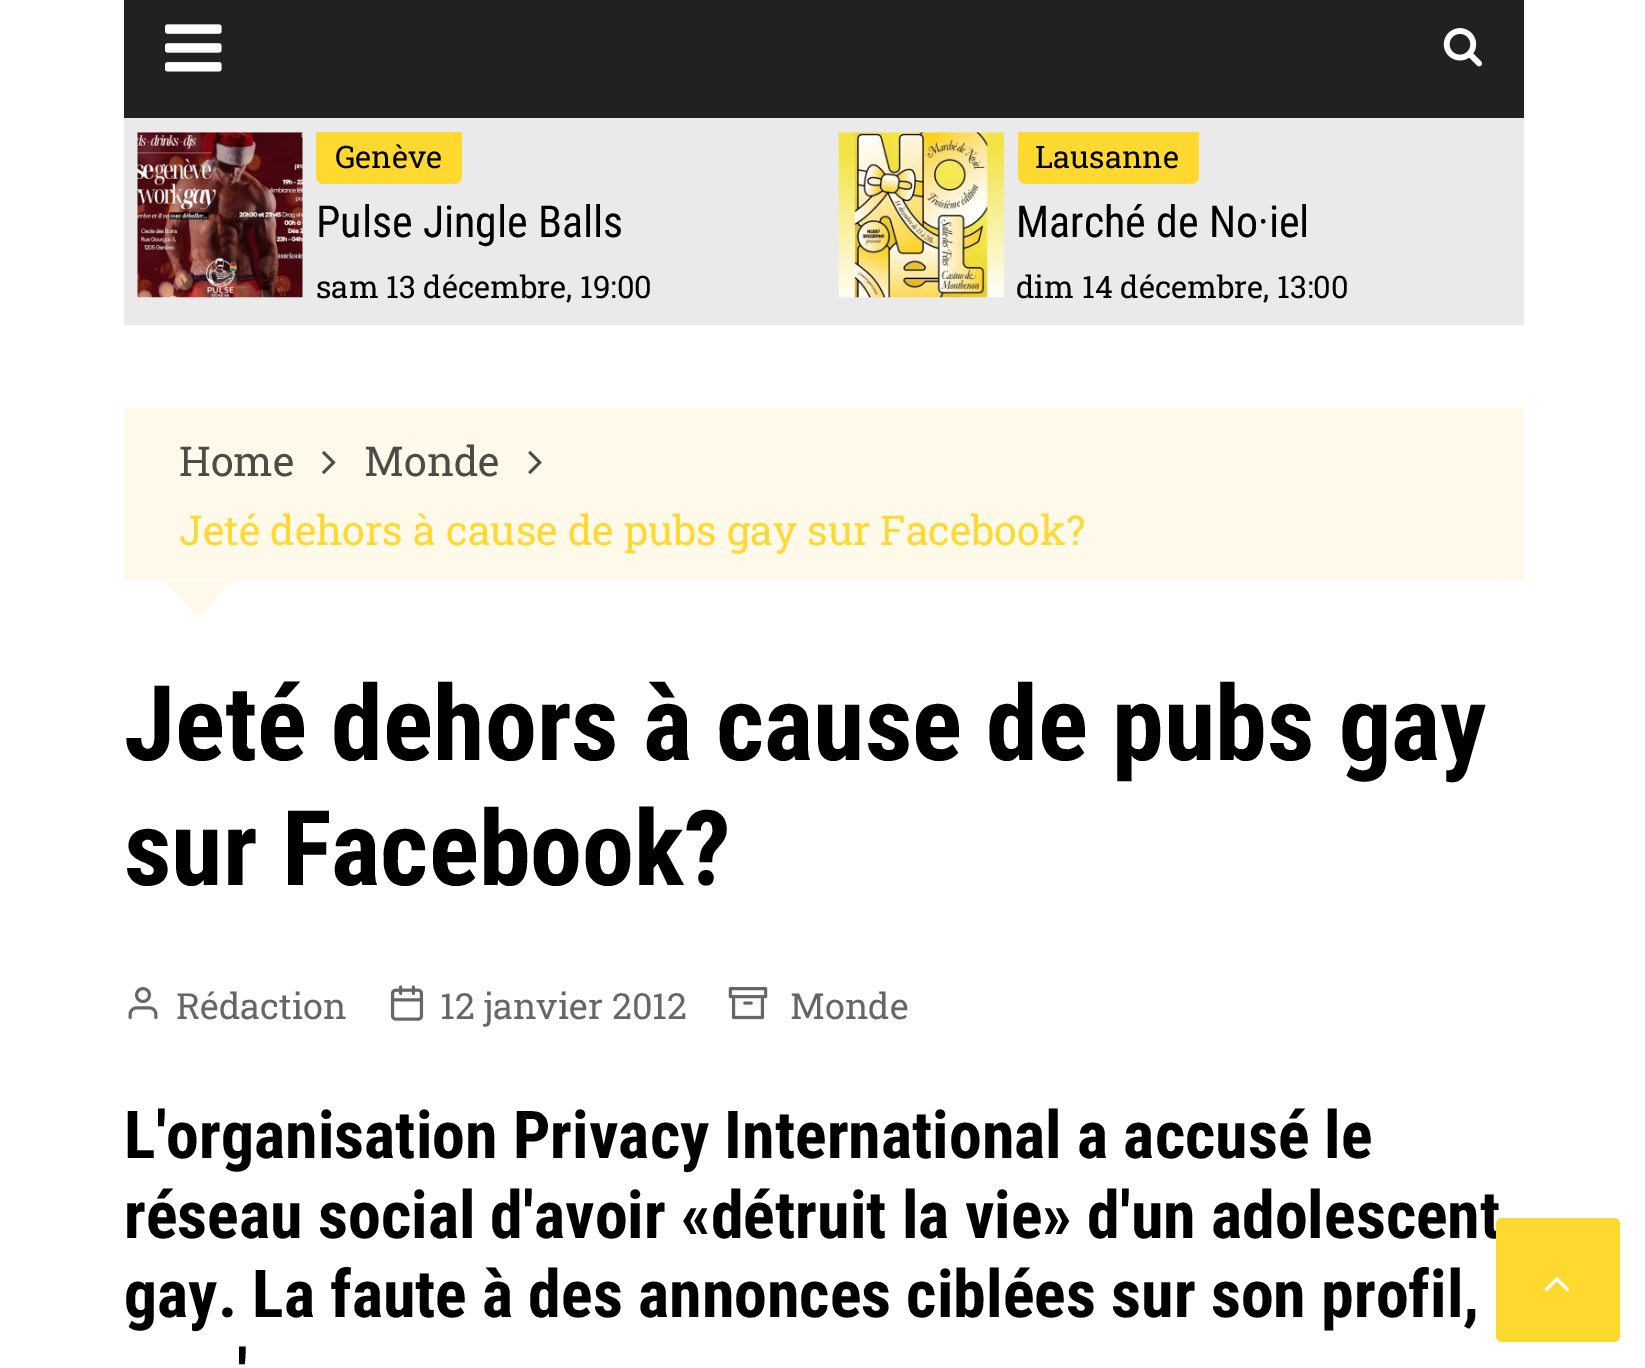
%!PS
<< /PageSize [1645 1368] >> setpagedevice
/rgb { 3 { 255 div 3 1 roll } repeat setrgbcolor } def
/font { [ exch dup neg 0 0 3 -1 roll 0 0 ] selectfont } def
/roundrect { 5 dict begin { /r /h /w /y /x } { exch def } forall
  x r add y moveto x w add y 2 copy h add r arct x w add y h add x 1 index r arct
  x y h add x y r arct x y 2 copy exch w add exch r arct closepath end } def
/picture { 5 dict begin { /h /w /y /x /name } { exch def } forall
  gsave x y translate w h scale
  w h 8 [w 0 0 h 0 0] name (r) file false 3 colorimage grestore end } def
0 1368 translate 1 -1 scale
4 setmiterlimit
255 255 255 rgb
0 0 1645 1368 rectfill
33 33 33 rgb
124 0 1400 118 rectfill
(img/1.rgb) 165 24 57 48 picture
(img/2.rgb) 1443 28 39 39 picture
234 234 234 rgb
124 118 1400 207 rectfill
(img/3.rgb) 137 132 166 166 picture
gsave
124 132 701 179 rectclip
255 217 48 rgb
316 127 146 57 8 roundrect fill
grestore
(img/4.rgb) 838 132 166 166 picture
gsave
825 132 699 179 rectclip
255 217 48 rgb
1018 127 181 57 8 roundrect fill
grestore
255 249 234 rgb
124 407 1400 173 rectfill
(img/5.rgb) 322 451 14 23 picture
(img/6.rgb) 528 451 14 23 picture
165 581 moveto 231 581 lineto 198 617 lineto closepath fill
(img/7.rgb) 128 987 30 33 picture
(img/8.rgb) 390 985 34 36 picture
(img/9.rgb) 728 987 40 33 picture
/RobotoSlab-Regular 31 font
1 1 1 rgb
335 168 moveto (Genève) show
/RobotoCondensed-Regular 44 font
316 237 moveto (Pulse Jingle Balls) show
/RobotoSlab-Regular 31 font
316 298 moveto (sam 13 décembre, 19:00) show
1035 168 moveto (Lausanne) show
/RobotoCondensed-Regular 44 font
1016 237 moveto (Marché de No·iel) show
/RobotoSlab-Regular 31 font
1016 298 moveto (dim 14 décembre, 13:00) show
/RobotoSlab-Regular 41.25 font
77 75 70 rgb
179 476 moveto (Home) show
364 476 moveto (Monde) show
255 217 48 rgb
179 545 moveto (Jeté dehors à cause de pubs gay sur Facebook?) show
/RobotoCondensed-Bold 104.5 font
1 1 1 rgb
124 760 moveto (Jeté dehors à cause de pubs gay) show
124 885 moveto (sur Facebook?) show
/RobotoSlab-Regular 36 font
102 102 102 rgb
[
  [(Rédaction) 176 1019]
  [(12 janvier 2012) 440 1019]
  [(Monde) 790 1019]
] { aload pop moveto show } forall
/RobotoCondensed-Bold 66 font
1 1 1 rgb
[
  [(L'organisation Privacy International a accusé le) 124 1158]
  [(réseau social d'avoir «détruit la vie» d'un adolescent) 124 1238]
  [(gay. La faute à des annonces ciblées sur son profil,) 124 1317]
  [(') 237 1396]
] { aload pop moveto show } forall
255 217 48 rgb
1496 1218 124 124 6 roundrect fill
(img/10.rgb) 1544 1277 26 15 picture
showpage
